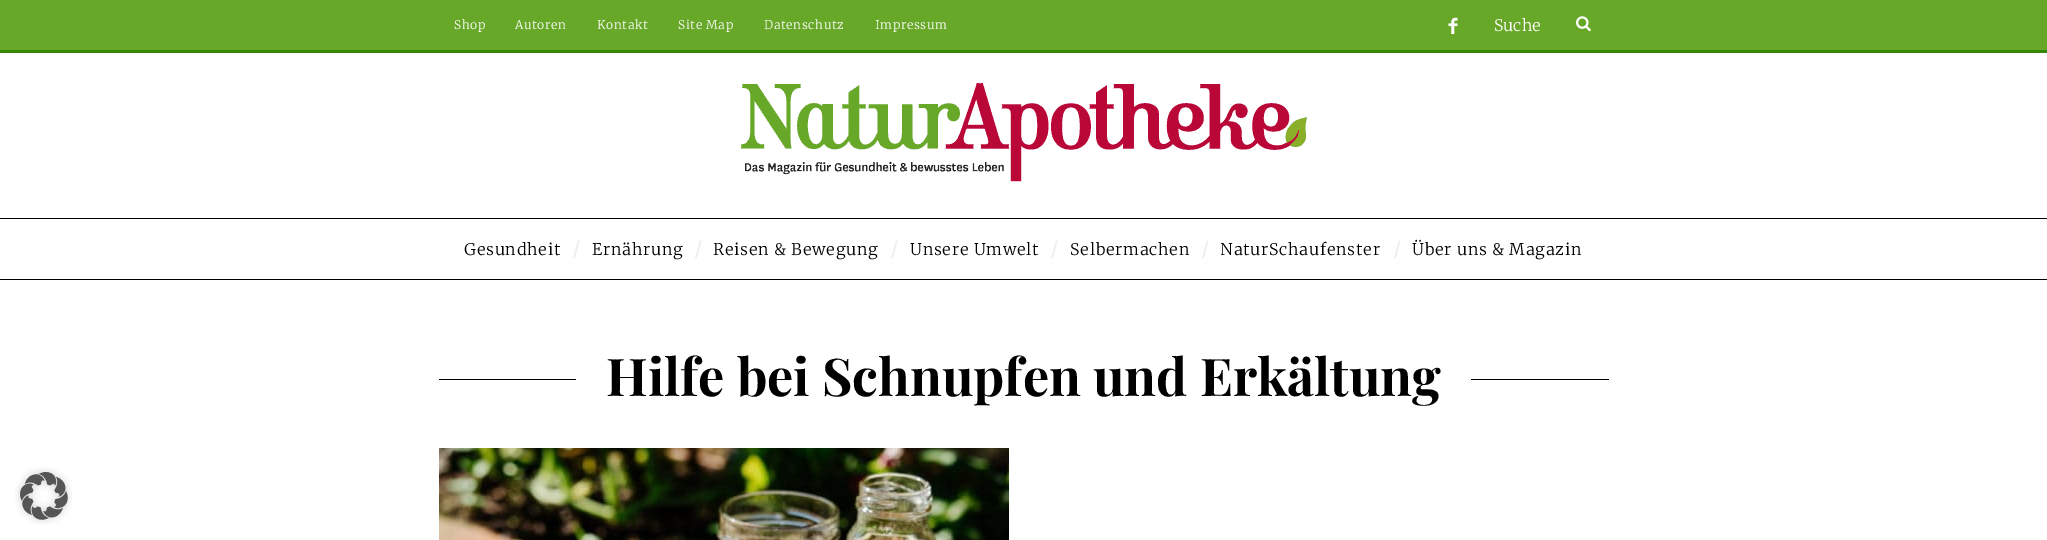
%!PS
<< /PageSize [2047 540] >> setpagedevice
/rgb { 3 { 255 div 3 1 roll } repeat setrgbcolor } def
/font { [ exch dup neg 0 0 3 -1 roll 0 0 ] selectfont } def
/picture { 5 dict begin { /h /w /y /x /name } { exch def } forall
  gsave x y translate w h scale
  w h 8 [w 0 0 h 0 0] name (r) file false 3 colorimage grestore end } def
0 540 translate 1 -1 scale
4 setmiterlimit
255 255 255 rgb
0 0 2047 540 rectfill
104 168 41 rgb
0 0 2047 50 rectfill
52 135 4 rgb
0 50 2047 3 rectfill
(img/1.rgb) 1448 17 10 17 picture
(img/2.rgb) 1576 16 15 16 picture
(img/3.rgb) 741 83 566 99 picture
[
  [0 218 2047 1 0 0 0]
  [0 279 2047 1 0 0 0]
  [439 379 1170 1 0 0 0]
  [576 379 895 1 255 255 255]
] { aload pop rgb rectfill } forall
(img/4.rgb) 439 448 570 92 picture
(img/5.rgb) 15 467 57 57 picture
/Merriweather-Light 12 font
454 29 moveto 0.6 0 (Shop) ashow
515 29 moveto 0.6 0 (Autoren) ashow
597 29 moveto 0.6 0 (Kontakt) ashow
678 29 moveto 0.6 0 (Site Map) ashow
764 29 moveto 0.6 0 (Datenschutz) ashow
875 29 moveto 0.6 0 (Impressum) ashow
/Merriweather-Light 16 font
1494 31 moveto (Suche) show
0 0 0 rgb
464 255 moveto 0.75 0 (Gesundheit) ashow
/LiberationSans-Regular 24 font
238 238 238 rgb
573 258 moveto 0.75 0 (/) ashow
/Merriweather-Light 16 font
0 0 0 rgb
592 255 moveto 0.75 0 (Ernährung) ashow
/LiberationSans-Regular 24 font
238 238 238 rgb
695 258 moveto 0.75 0 (/) ashow
/Merriweather-Light 16 font
0 0 0 rgb
713 255 moveto 0.75 0 (Reisen & Bewegung) ashow
/LiberationSans-Regular 24 font
238 238 238 rgb
891 258 moveto 0.75 0 (/) ashow
/Merriweather-Light 16 font
0 0 0 rgb
910 255 moveto 0.75 0 (Unsere Umwelt) ashow
/LiberationSans-Regular 24 font
238 238 238 rgb
1051 258 moveto 0.75 0 (/) ashow
/Merriweather-Light 16 font
0 0 0 rgb
1070 255 moveto 0.75 0 (Selbermachen) ashow
/LiberationSans-Regular 24 font
238 238 238 rgb
1202 258 moveto 0.75 0 (/) ashow
/Merriweather-Light 16 font
0 0 0 rgb
1220 255 moveto 0.75 0 (NaturSchaufenster) ashow
/LiberationSans-Regular 24 font
238 238 238 rgb
1394 258 moveto 0.75 0 (/) ashow
/Merriweather-Light 16 font
0 0 0 rgb
1412 255 moveto 0.75 0 (Über uns & Magazin) ashow
/PlayfairDisplay-Bold 52 font
606 396 moveto (Hilfe bei Schnupfen und Erkältung) show
showpage
